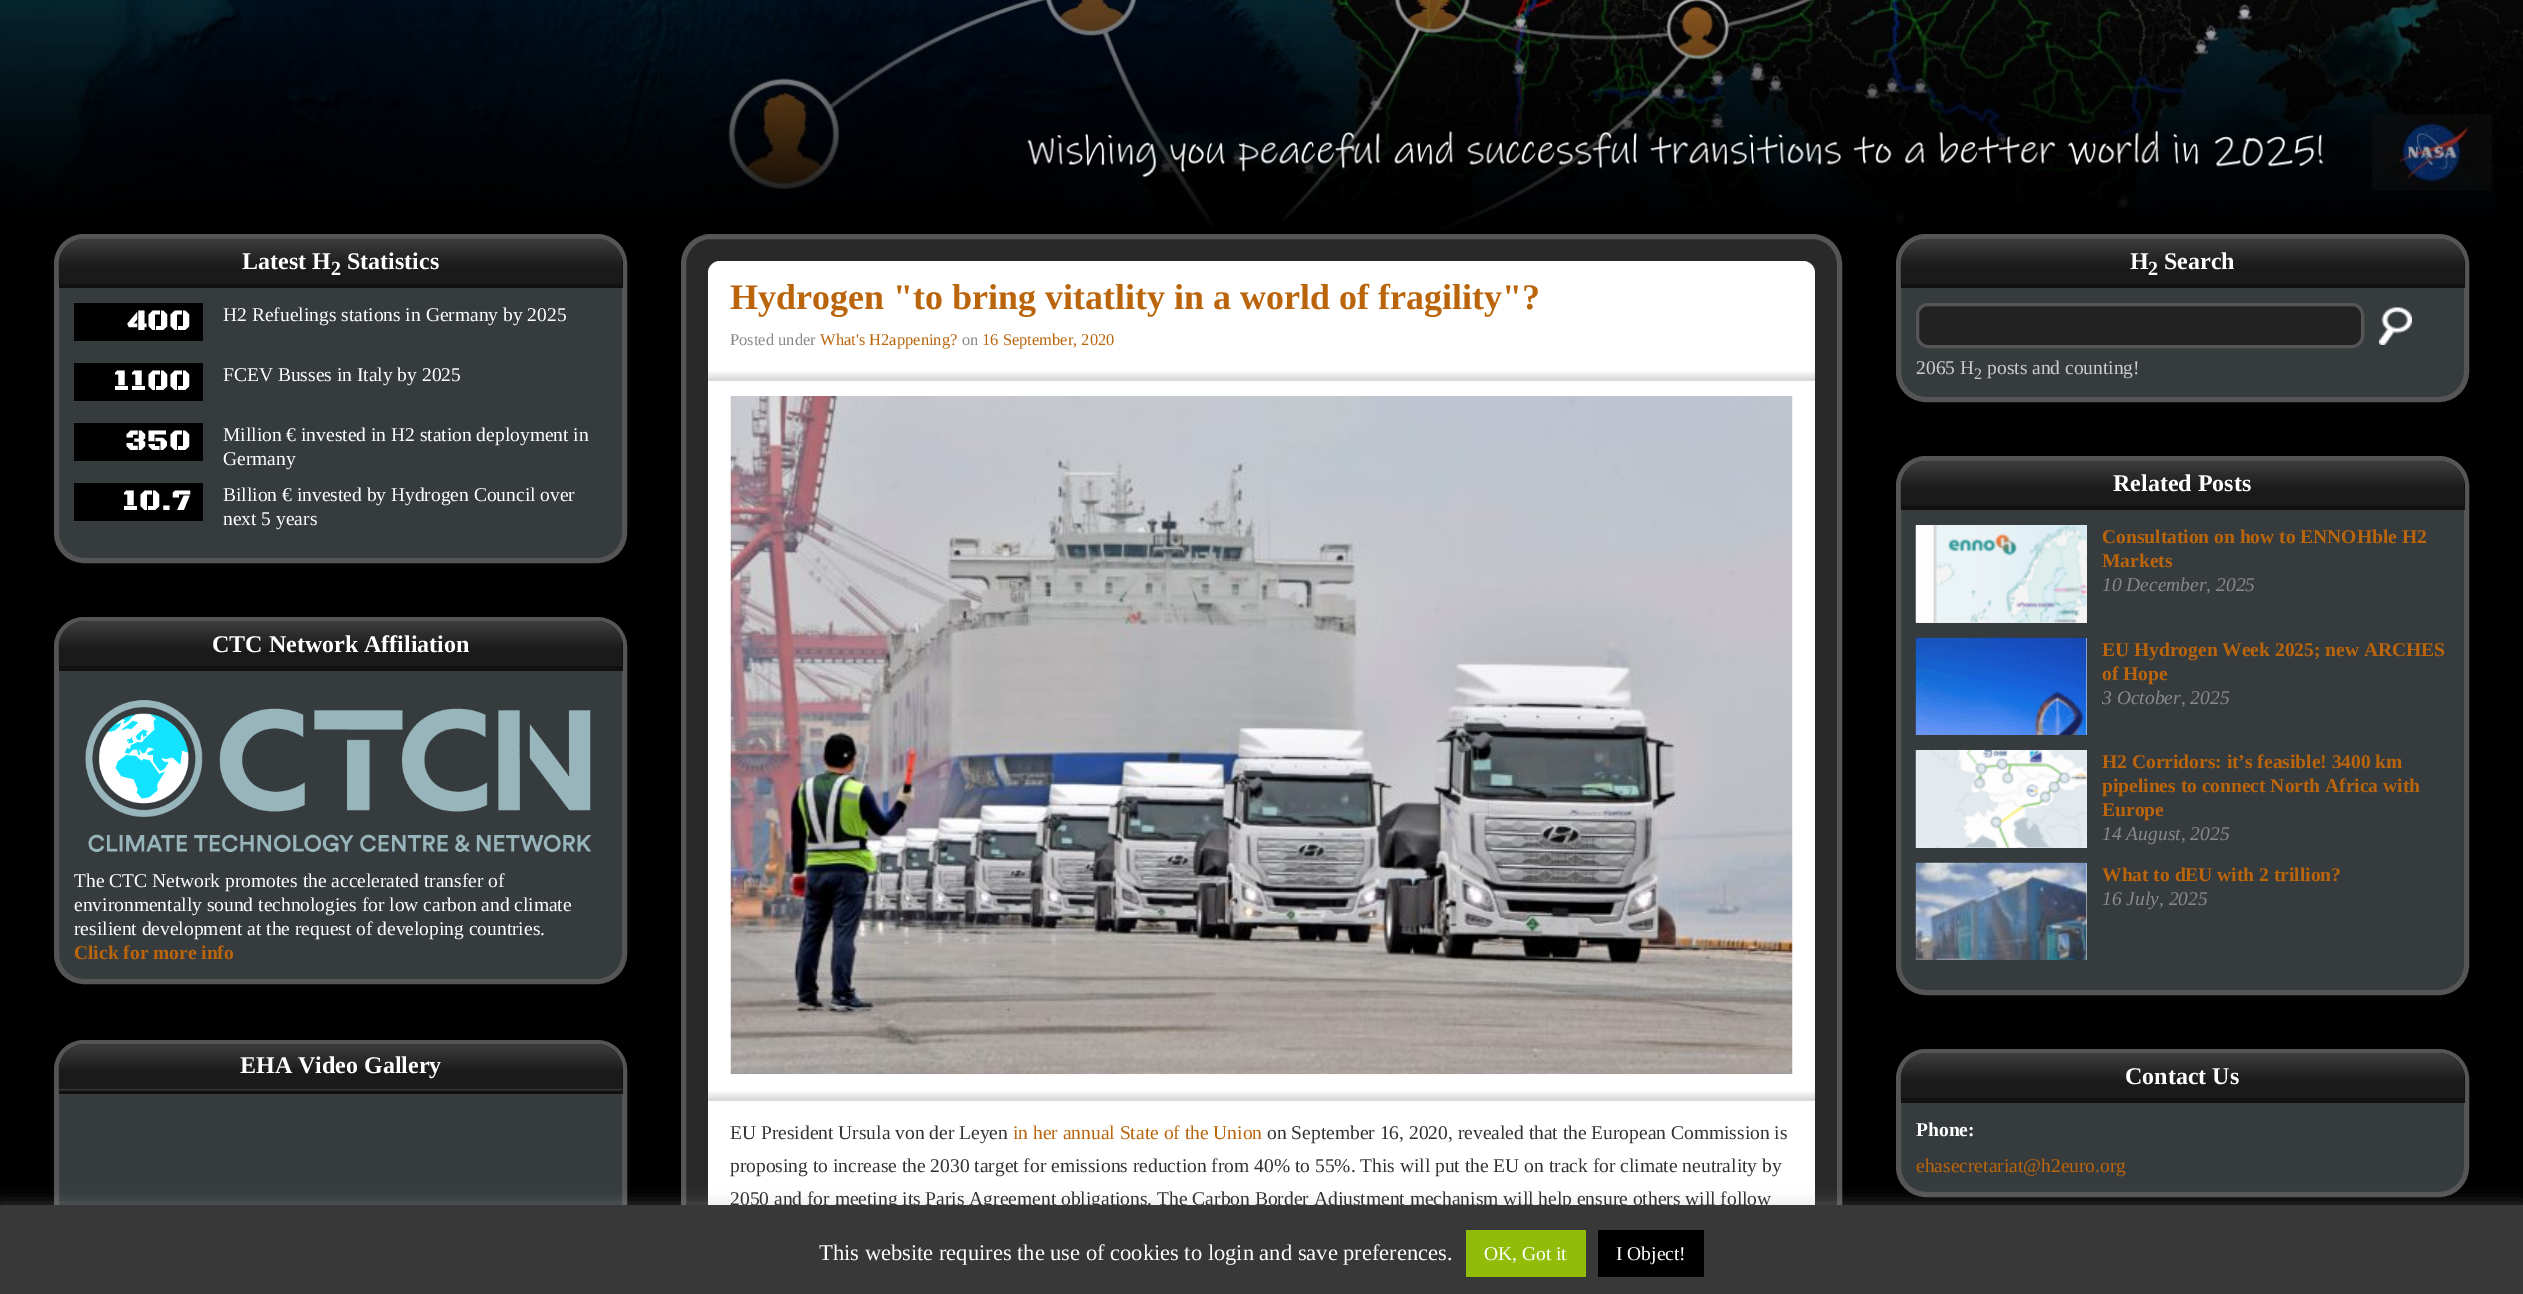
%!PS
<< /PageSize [2523 1294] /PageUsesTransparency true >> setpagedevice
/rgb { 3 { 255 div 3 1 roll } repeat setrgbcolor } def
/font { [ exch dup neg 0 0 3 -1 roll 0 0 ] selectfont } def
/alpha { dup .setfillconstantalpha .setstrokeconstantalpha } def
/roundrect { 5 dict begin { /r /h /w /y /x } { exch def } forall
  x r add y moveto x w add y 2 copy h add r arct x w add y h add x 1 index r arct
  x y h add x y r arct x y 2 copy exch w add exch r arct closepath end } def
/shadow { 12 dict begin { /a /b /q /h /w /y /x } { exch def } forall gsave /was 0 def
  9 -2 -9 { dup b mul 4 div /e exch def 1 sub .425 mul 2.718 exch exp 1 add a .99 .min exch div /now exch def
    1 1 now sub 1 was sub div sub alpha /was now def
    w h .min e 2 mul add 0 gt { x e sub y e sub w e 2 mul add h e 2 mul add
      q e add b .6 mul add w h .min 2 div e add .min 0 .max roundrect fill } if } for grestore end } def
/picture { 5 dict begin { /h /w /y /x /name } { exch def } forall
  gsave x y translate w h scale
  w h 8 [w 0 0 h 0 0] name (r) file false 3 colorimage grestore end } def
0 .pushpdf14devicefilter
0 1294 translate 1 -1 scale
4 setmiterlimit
255 255 255 rgb
0 0 2523 1294 rectfill
(img/1.rgb) 0 0 2523 234 picture
0 0 0 rgb
0 234 2523 971 rectfill
54 60 62 rgb
56.5 236.5 568 324 27.5 roundrect gsave fill grestore
85 85 85 rgb
5 setlinewidth
stroke
17 17 17 rgb
85 239 moveto 597 239 lineto 611.5 239 623 250.5 623 265 curveto 623 288 lineto 59 288 lineto 59 265 lineto 59 250.5 70.5 239 85 239 curveto closepath fill
(img/2.rgb) 58 238 564 46 picture
[
  [74 303 129 38 0 0 0]
  [74 363 129 38 0 0 0]
  [74 423 129 38 0 0 0]
  [74 483 129 38 0 0 0]
] { aload pop rgb rectfill } forall
54 60 62 rgb
56.5 619.5 568 362 27.5 roundrect gsave fill grestore
85 85 85 rgb
stroke
17 17 17 rgb
85 621 moveto 597 621 lineto 611.5 621 623 632.5 623 647 curveto 623 671 lineto 59 671 lineto 59 647 lineto 59 632.5 70.5 621 85 621 curveto closepath fill
(img/3.rgb) 58 621 564 45 picture
(img/4.rgb) 85 700 507 152 picture
54 60 62 rgb
56.5 1042.5 568 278 27.5 roundrect gsave fill grestore
85 85 85 rgb
stroke
17 17 17 rgb
85 1044 moveto 597 1044 lineto 611.5 1044 623 1055.5 623 1070 curveto 623 1094 lineto 59 1094 lineto 59 1070 lineto 59 1055.5 70.5 1044 85 1044 curveto closepath fill
(img/5.rgb) 58 1044 565 47 picture
41 41 41 rgb
683.5 236.5 1156 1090 27.5 roundrect gsave fill grestore
85 85 85 rgb
stroke
255 255 255 rgb
708 261 1107 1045 12 roundrect fill
(img/6.rgb) 708 371 1107 10 picture
(img/7.rgb) 730 396 1063 678 picture
(img/6.rgb) 708 1091 1107 10 picture
54 60 62 rgb
1898.5 236.5 568 163 27.5 roundrect gsave fill grestore
85 85 85 rgb
stroke
17 17 17 rgb
1927 239 moveto 2439 239 lineto 2453.5 239 2465 250.5 2465 265 curveto 2465 288 lineto 1901 288 lineto 1901 265 lineto 1901 250.5 1912.5 239 1927 239 curveto closepath fill
(img/8.rgb) 1900 238 564 46 picture
34 34 34 rgb
1917.5 304.5 445 42 10.5 roundrect gsave fill grestore
85 85 85 rgb
3 setlinewidth
stroke
(img/9.rgb) 2379 307 33 38 picture
54 60 62 rgb
1898.5 458.5 568 534 27.5 roundrect gsave fill grestore
85 85 85 rgb
5 setlinewidth
stroke
17 17 17 rgb
1927 461 moveto 2439 461 lineto 2453.5 461 2465 472.5 2465 487 curveto 2465 510 lineto 1901 510 lineto 1901 487 lineto 1901 472.5 1912.5 461 1927 461 curveto closepath fill
(img/10.rgb) 1900 460 564 46 picture
239 239 239 rgb
1916 525 171 98 rectfill
(img/11.rgb) 1915 525 172 98 picture
1916 638 171 97 rectfill
(img/12.rgb) 1915 637 172 98 picture
1916 750 171 98 rectfill
(img/13.rgb) 1915 750 172 98 picture
1916 863 171 97 rectfill
(img/14.rgb) 1915 862 172 98 picture
54 60 62 rgb
1898.5 1051.5 568 143 27.5 roundrect gsave fill grestore
85 85 85 rgb
stroke
17 17 17 rgb
1927 1053 moveto 2439 1053 lineto 2453.5 1053 2465 1064.5 2465 1079 curveto 2465 1103 lineto 1901 1103 lineto 1901 1079 lineto 1901 1064.5 1912.5 1053 1927 1053 curveto closepath fill
(img/15.rgb) 1900 1053 564 45 picture
172 171 171 rgb
0 1203 2523 90 0 7.5 0.3 shadow
/LiberationSerif-Bold 24 font
255 255 255 rgb
242 269 moveto (Latest H) show
/LiberationSerif-Bold 20 font
331 275 moveto (2) show
/LiberationSerif-Bold 24 font
347 269 moveto (Statistics) show
/BlackOpsOne-Black 30 font
127 330 moveto (400) show
/LiberationSerif-Regular 19.5 font
223 321 moveto (H2 Refuelings stations in Germany by 2025) show
/BlackOpsOne-Black 30 font
113 390 moveto (1100) show
/LiberationSerif-Regular 19.5 font
223 381 moveto (FCEV Busses in Italy by 2025) show
/BlackOpsOne-Black 30 font
125 450 moveto (350) show
/LiberationSerif-Regular 19.5 font
223 441 moveto (Million € invested in H2 station deployment in) show
223 465 moveto (Germany) show
/BlackOpsOne-Black 30 font
122 510 moveto (10.7) show
/LiberationSerif-Regular 19.5 font
223 501 moveto (Billion € invested by Hydrogen Council over) show
223 525 moveto (next 5 years) show
/LiberationSerif-Bold 24 font
212 652 moveto (CTC Network Affiliation) show
/LiberationSerif-Regular 19.5 font
[
  [(The CTC Network promotes the accelerated transfer of) 74 887]
  [(environmentally sound technologies for low carbon and climate) 74 911]
  [(resilient development at the request of developing countries.) 74 935]
] { aload pop moveto show } forall
/LiberationSerif-Bold 19.5 font
186 100 11 rgb
74 959 moveto (Click for more info) show
/LiberationSerif-Bold 24 font
255 255 255 rgb
240 1073 moveto (EHA Video Gallery) show
/LiberationSerif-Bold 36 font
186 100 11 rgb
730 309 moveto (Hydrogen "to bring vitatlity in a world of fragility"?) show
/LiberationSerif-Regular 16.5 font
136 136 136 rgb
730 345 moveto (Posted under) show
186 100 11 rgb
820 345 moveto (What's H2appening?) show
136 136 136 rgb
962 345 moveto (on) show
186 100 11 rgb
982 345 moveto (16 September, 2020) show
/LiberationSerif-Regular 19.5 font
51 51 51 rgb
730 1139 moveto (EU President Ursula von der Leyen) show
186 100 11 rgb
1013 1139 moveto (in her annual State of the Union) show
51 51 51 rgb
[
  [(on September 16, 2020, revealed that the European Commission is) 1267 1139]
  [(proposing to increase the 2030 target for emissions reduction from 40% to 55%. This will put the EU on track for climate neutrality by) 730 1172]
  [(2050 and for meeting its Paris Agreement obligations. The Carbon Border Adjustment mechanism will help ensure others will follow) 730 1205]
] { aload pop moveto show } forall
/LiberationSerif-Bold 24 font
255 255 255 rgb
2130 269 moveto (H) show
/LiberationSerif-Bold 20 font
2148 275 moveto (2) show
/LiberationSerif-Bold 24 font
2164 269 moveto (Search) show
/LiberationSerif-Regular 19.5 font
204 204 204 rgb
1916 374 moveto (2065 H) show
/LiberationSerif-Regular 16 font
1974 379 moveto (2) show
/LiberationSerif-Regular 19.5 font
1987 374 moveto (posts and counting!) show
/LiberationSerif-Bold 24 font
255 255 255 rgb
2113 491 moveto (Related Posts) show
/LiberationSerif-Bold 19.5 font
186 100 11 rgb
2102 543 moveto (Consultation on how to ENNOHble H2) show
2102 567 moveto (Markets) show
/LiberationSerif-Italic 19.5 font
136 136 136 rgb
2102 591 moveto (10 December, 2025) show
/LiberationSerif-Bold 19.5 font
186 100 11 rgb
2102 656 moveto (EU Hydrogen Week 2025; new ARCHES) show
2102 680 moveto (of Hope) show
/LiberationSerif-Italic 19.5 font
136 136 136 rgb
2102 704 moveto (3 October, 2025) show
/LiberationSerif-Bold 19.5 font
186 100 11 rgb
[
  [(H2 Corridors: it’s feasible! 3400 km) 2102 768]
  [(pipelines to connect North Africa with) 2102 792]
  [(Europe) 2102 816]
] { aload pop moveto show } forall
/LiberationSerif-Italic 19.5 font
136 136 136 rgb
2102 840 moveto (14 August, 2025) show
/LiberationSerif-Bold 19.5 font
186 100 11 rgb
2102 881 moveto (What to dEU with 2 trillion?) show
/LiberationSerif-Italic 19.5 font
136 136 136 rgb
2102 905 moveto (16 July, 2025) show
/LiberationSerif-Bold 24 font
255 255 255 rgb
2125 1084 moveto (Contact Us) show
/LiberationSerif-Bold 19.5 font
1916 1136 moveto (Phone:) show
/LiberationSerif-Regular 19.5 font
186 100 11 rgb
1916 1172 moveto (ehasecretariat@h2euro.org) show
56 56 56 rgb
0 1205 2523 89 rectfill
/LiberationSerif-Regular 22.5 font
255 255 255 rgb
819 1260 moveto (This website requires the use of cookies to login and save preferences.) show
145 189 9 rgb
1466 1230 120 47 rectfill
/LiberationSerif-Regular 19.5 font
255 255 255 rgb
1484 1260 moveto (OK, Got it) show
0 0 0 rgb
1598 1230 106 47 rectfill
255 255 255 rgb
1616 1260 moveto (I Object!) show
.poppdf14devicefilter showpage
